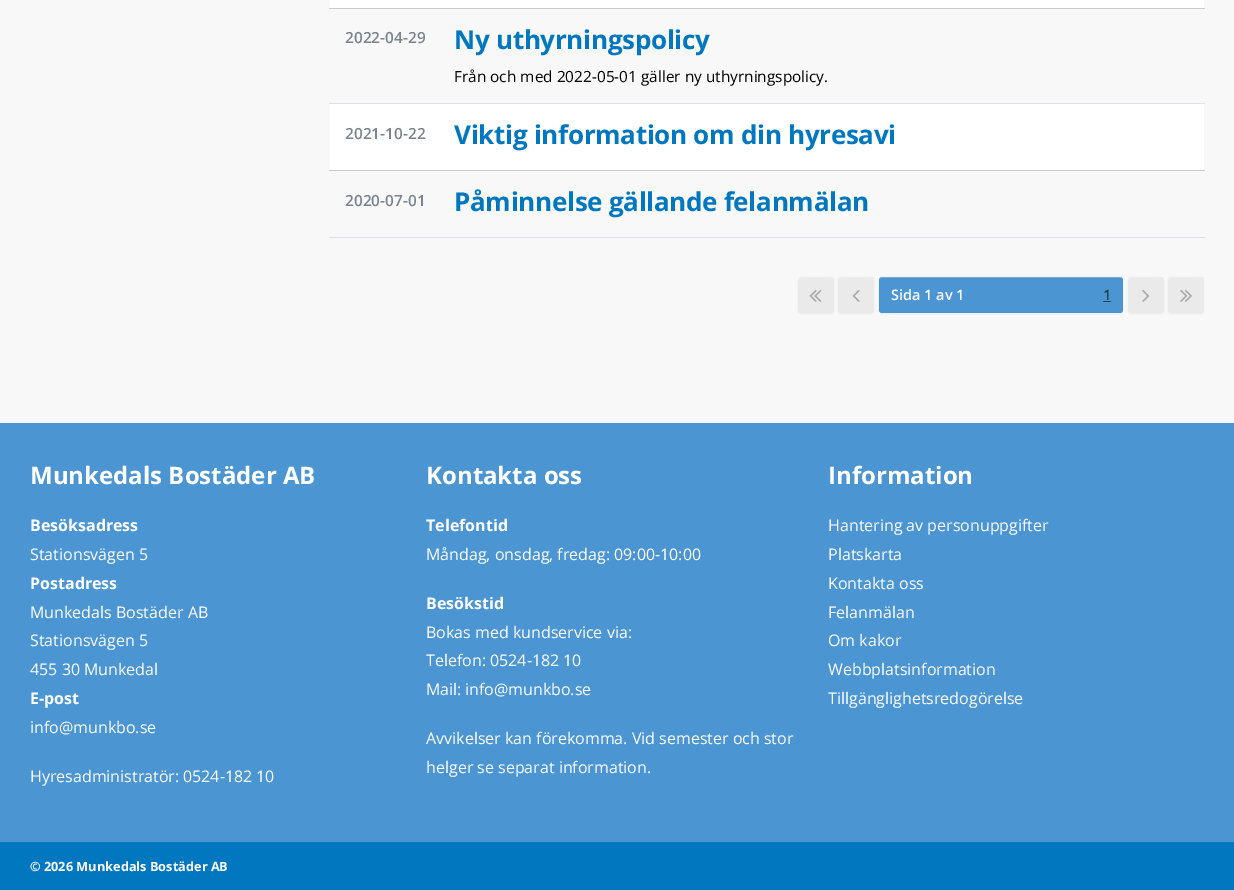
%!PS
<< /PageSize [1234 890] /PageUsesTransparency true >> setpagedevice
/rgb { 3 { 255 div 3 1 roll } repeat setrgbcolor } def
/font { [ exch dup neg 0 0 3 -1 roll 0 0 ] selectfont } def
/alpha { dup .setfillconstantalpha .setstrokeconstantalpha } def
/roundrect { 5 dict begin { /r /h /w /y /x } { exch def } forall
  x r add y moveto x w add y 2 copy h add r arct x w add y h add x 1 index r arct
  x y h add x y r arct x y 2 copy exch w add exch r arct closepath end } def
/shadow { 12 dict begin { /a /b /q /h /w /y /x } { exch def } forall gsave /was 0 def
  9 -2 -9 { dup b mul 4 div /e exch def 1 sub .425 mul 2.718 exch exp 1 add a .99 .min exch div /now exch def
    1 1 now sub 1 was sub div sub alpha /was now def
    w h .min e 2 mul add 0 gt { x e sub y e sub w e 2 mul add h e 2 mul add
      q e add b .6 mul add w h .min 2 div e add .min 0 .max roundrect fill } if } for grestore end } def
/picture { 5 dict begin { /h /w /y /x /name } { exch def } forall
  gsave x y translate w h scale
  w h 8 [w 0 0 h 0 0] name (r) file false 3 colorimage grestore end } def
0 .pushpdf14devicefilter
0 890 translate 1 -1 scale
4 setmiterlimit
248 248 248 rgb
0 0 1234 890 rectfill
[
  [330 0 874 8 255 255 255]
  [329 8 876 1 204 204 204]
  [329 103 876 1 222 225 229]
  [330 104 874 66 255 255 255]
  [329 170 876 1 204 204 204]
  [329 237 876 1 222 225 229]
] { aload pop rgb rectfill } forall
0 0 0 rgb
798 278 36 36 3 1 0.05 shadow
234 234 234 rgb
798 277 36 36 3 roundrect fill
238 238 238 rgb
801 278 moveto 831 278 lineto 833 278 834 279 834 281 curveto 834 276 830 277 826 277 curveto 806 277 lineto 802 277 798 276 798 281 curveto 798 279 799 278 801 278 curveto closepath fill
(img/1.rgb) 809 289 13 13 picture
0 0 0 rgb
838 278 36 36 3 1 0.05 shadow
234 234 234 rgb
838 277 36 36 3 roundrect fill
238 238 238 rgb
841 278 moveto 871 278 lineto 873 278 874 279 874 281 curveto 874 276 870 277 866 277 curveto 846 277 lineto 842 277 838 276 838 281 curveto 838 279 839 278 841 278 curveto closepath fill
(img/2.rgb) 852 289 8 13 picture
0 0 0 rgb
879 278 244 36 3 1 0.05 shadow
75 150 210 rgb
879 277 244 36 3 roundrect fill
0.2 alpha
255 255 255 rgb
882 278 moveto 1121 278 lineto 1123 279 lineto 1123 281 lineto 1123 279 1122 277 1120 277 curveto 882 277 lineto 880 277 879 279 879 281 curveto 879 279 880 278 882 278 curveto closepath fill
1 alpha
37 67 77 rgb
1103 301 8 1 rectfill
0 0 0 rgb
1128 278 36 36 3 1 0.05 shadow
234 234 234 rgb
1128 277 36 36 3 roundrect fill
238 238 238 rgb
1131 278 moveto 1161 278 lineto 1163 278 1164 279 1164 281 curveto 1164 276 1160 277 1156 277 curveto 1136 277 lineto 1132 277 1128 276 1128 281 curveto 1128 279 1129 278 1131 278 curveto closepath fill
(img/3.rgb) 1142 289 8 13 picture
0 0 0 rgb
1168 278 36 36 3 1 0.05 shadow
234 234 234 rgb
1168 277 36 36 3 roundrect fill
238 238 238 rgb
1171 278 moveto 1201 278 lineto 1203 278 1204 279 1204 281 curveto 1204 276 1200 277 1196 277 curveto 1176 277 lineto 1172 277 1168 276 1168 281 curveto 1168 279 1169 278 1171 278 curveto closepath fill
(img/4.rgb) 1180 289 12 13 picture
75 150 210 rgb
0 423 1234 419 rectfill
0 119 190 rgb
0 842 1234 48 rectfill
/OpenSans-SemiBold 15.4 font
122 131 142 rgb
345 43 moveto (2022-04-29) show
/OpenSans-Bold 26 font
0 119 190 rgb
454 49 moveto -0.3 0 (Ny uthyrningspolicy) ashow
/OpenSans-Regular 15.4 font
0 0 0 rgb
454 82 moveto (Från och med 2022-05-01 gäller ny uthyrningspolicy.) show
/OpenSans-SemiBold 15.4 font
122 131 142 rgb
345 139 moveto (2021-10-22) show
/OpenSans-Bold 26 font
0 119 190 rgb
454 144 moveto -0.3 0 (Viktig information om din hyresavi) ashow
/OpenSans-SemiBold 15.4 font
122 131 142 rgb
345 206 moveto (2020-07-01) show
/OpenSans-Bold 26 font
0 119 190 rgb
454 211 moveto -0.3 0 (Påminnelse gällande felanmälan) ashow
/OpenSans-SemiBold 14.5 font
255 255 255 rgb
891 300 moveto (Sida 1 av 1) show
37 67 77 rgb
1103 300 moveto (1) show
/OpenSans-Bold 24 font
255 255 255 rgb
30 484 moveto (Munkedals Bostäder AB) show
/OpenSans-Bold 16 font
30 531 moveto (Besöksadress) show
/OpenSans-Regular 16 font
30 560 moveto (Stationsvägen 5) show
/OpenSans-Bold 16 font
30 589 moveto (Postadress) show
/OpenSans-Regular 16 font
[
  [(Munkedals Bostäder AB) 30 618]
  [(Stationsvägen 5) 30 646]
  [(455 30 Munkedal) 30 675]
] { aload pop moveto show } forall
/OpenSans-Bold 16 font
30 704 moveto (E-post) show
/OpenSans-Regular 16 font
[
  [(info@munkbo.se) 30 733]
  [(Hyresadministratör:) 30 782]
  [(0524-182 10) 183 782]
] { aload pop moveto show } forall
/OpenSans-Bold 24 font
426 484 moveto (Kontakta oss) show
/OpenSans-Bold 16 font
426 531 moveto (Telefontid) show
/OpenSans-Regular 16 font
426 560 moveto (Måndag, onsdag, fredag: 09:00-10:00) show
/OpenSans-Bold 16 font
426 609 moveto (Besökstid) show
/OpenSans-Regular 16 font
[
  [(Bokas med kundservice via:) 426 638]
  [(Telefon:) 426 666]
  [(0524-182 10) 490 666]
  [(Mail:) 426 695]
  [(info@munkbo.se) 465 695]
  [(Avvikelser kan förekomma. Vid semester och stor) 426 744]
  [(helger se separat information.) 426 773]
] { aload pop moveto show } forall
/OpenSans-Bold 24 font
828 484 moveto (Information) show
/OpenSans-Regular 16 font
[
  [(Hantering av personuppgifter) 828 531]
  [(Platskarta) 828 560]
  [(Kontakta oss) 828 589]
  [(Felanmälan) 828 618]
  [(Om kakor) 828 646]
  [(Webbplatsinformation) 828 675]
  [(Tillgänglighetsredogörelse) 828 704]
] { aload pop moveto show } forall
/OpenSans-Bold 12.75 font
30 871 moveto (© 2026 Munkedals Bostäder AB) show
.poppdf14devicefilter showpage
